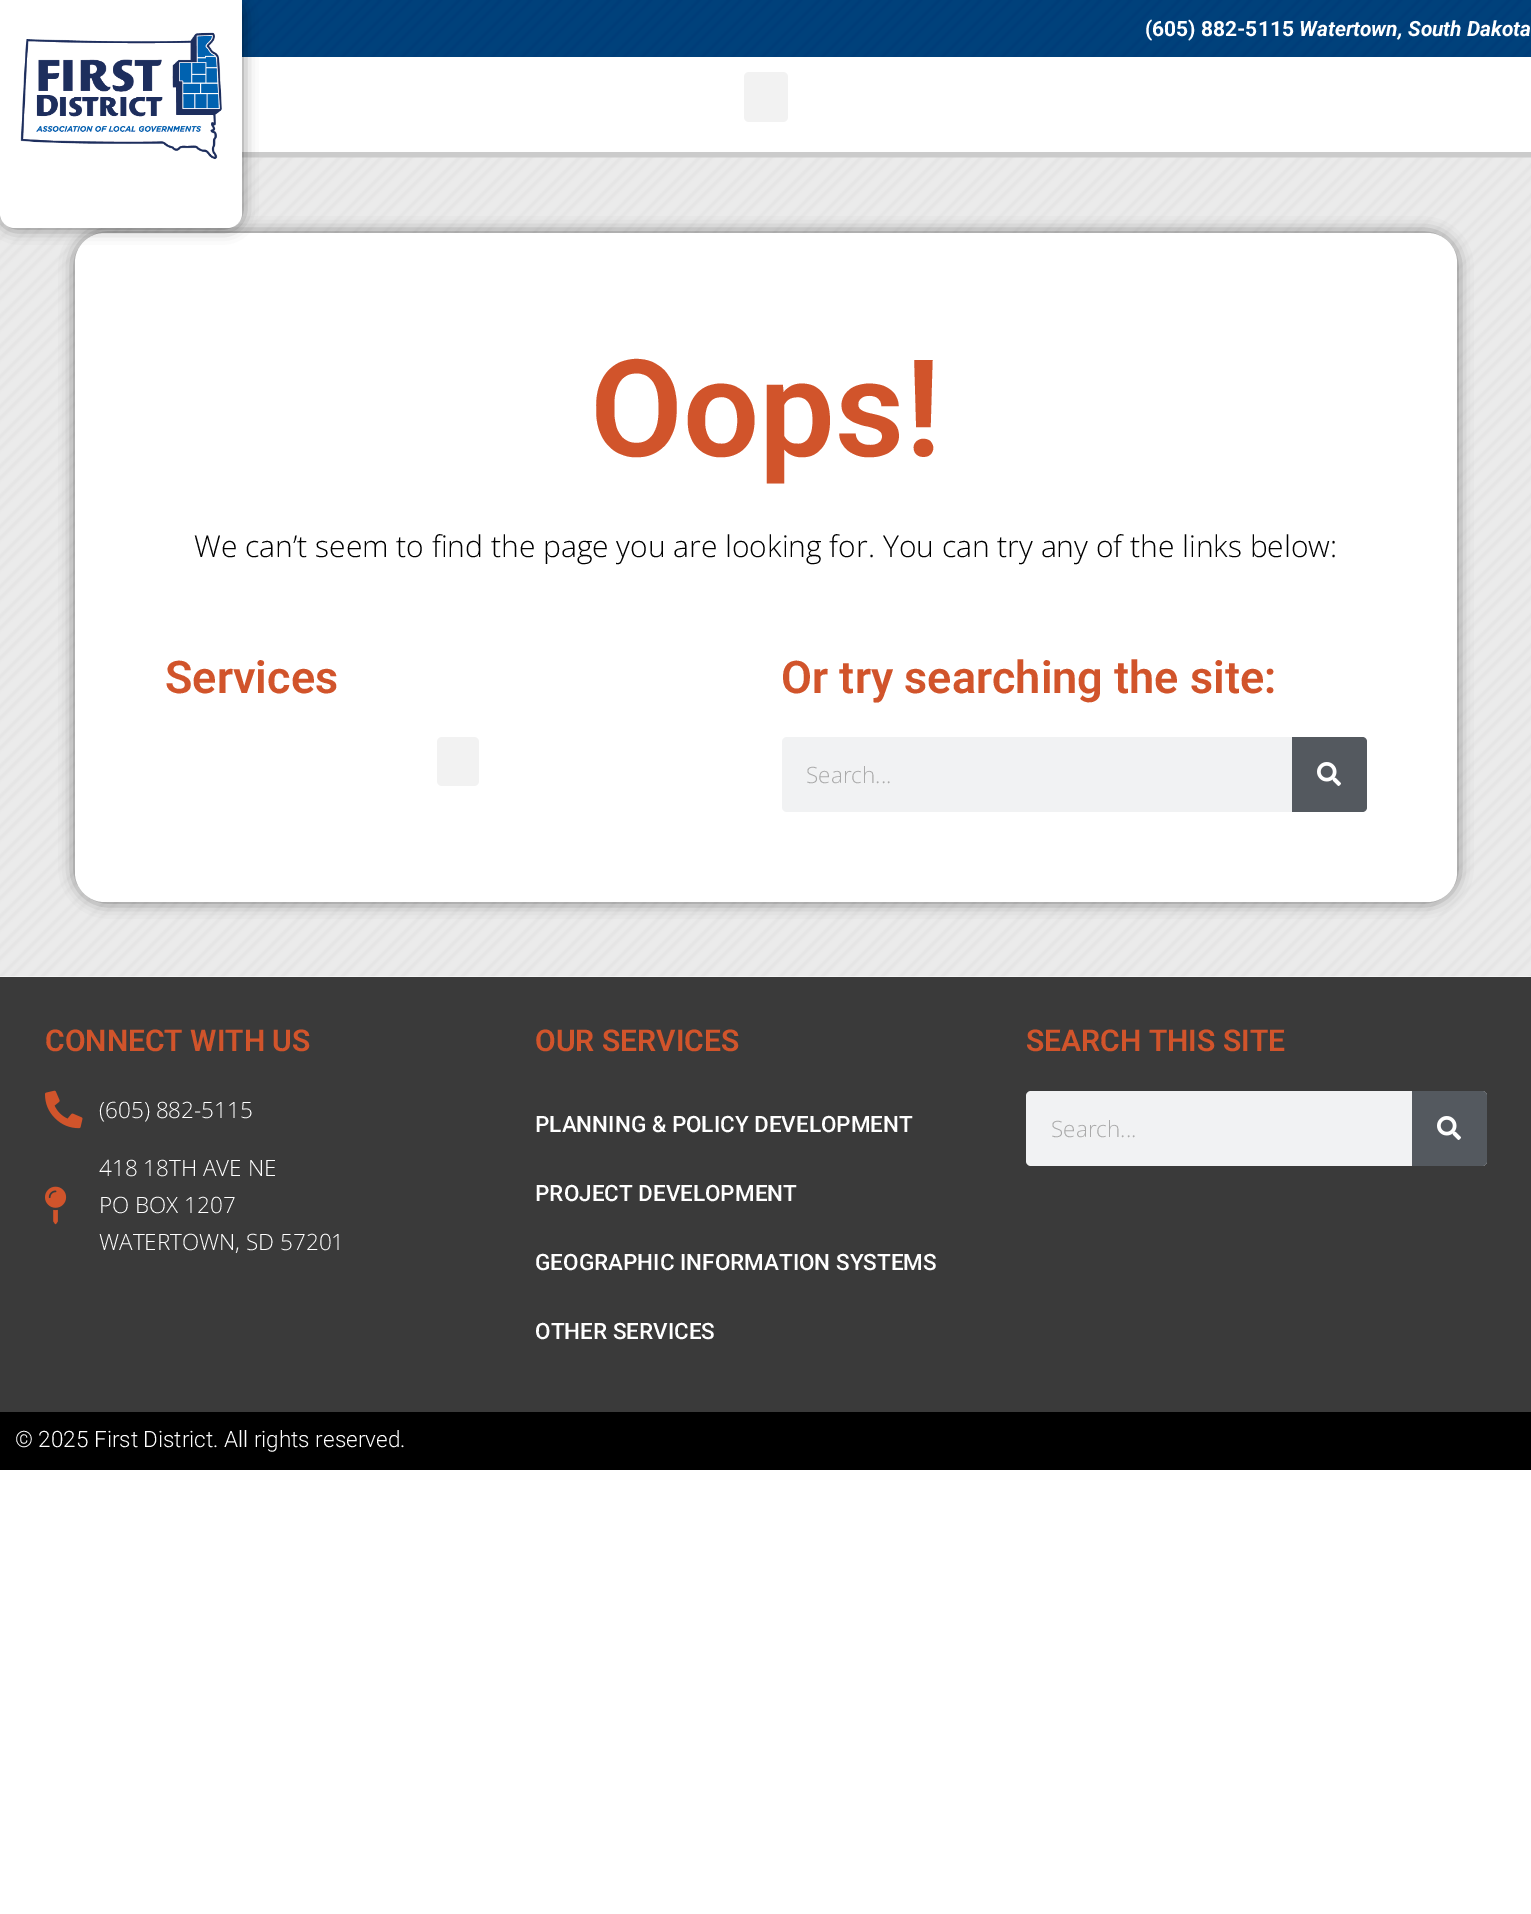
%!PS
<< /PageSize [1531 1914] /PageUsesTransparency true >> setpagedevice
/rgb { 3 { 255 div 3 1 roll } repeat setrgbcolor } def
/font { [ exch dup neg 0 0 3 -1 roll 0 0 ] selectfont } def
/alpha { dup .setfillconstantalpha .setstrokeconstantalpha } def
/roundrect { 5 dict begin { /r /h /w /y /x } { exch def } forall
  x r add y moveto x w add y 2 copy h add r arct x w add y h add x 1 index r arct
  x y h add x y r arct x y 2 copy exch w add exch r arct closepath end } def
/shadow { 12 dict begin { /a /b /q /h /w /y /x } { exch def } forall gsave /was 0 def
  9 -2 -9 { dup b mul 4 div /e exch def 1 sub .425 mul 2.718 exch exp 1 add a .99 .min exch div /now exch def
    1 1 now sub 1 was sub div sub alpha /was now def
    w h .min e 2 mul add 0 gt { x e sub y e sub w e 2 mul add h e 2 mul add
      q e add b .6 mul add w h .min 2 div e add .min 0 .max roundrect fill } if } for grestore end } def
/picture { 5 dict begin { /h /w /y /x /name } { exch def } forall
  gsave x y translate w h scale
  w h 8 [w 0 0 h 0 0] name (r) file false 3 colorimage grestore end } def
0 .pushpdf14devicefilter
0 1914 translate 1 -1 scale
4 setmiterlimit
255 255 255 rgb
0 0 1531 1914 rectfill
(img/1.rgb) 242 0 1289 57 picture
203 203 203 rgb
242 152 1289 6 rectfill
(img/3.rgb) 0 157 1531 820 picture
0 0 0 rgb
75 233 1382 669 30 7.5 0.5 shadow
255 255 255 rgb
75 233 1382 669 30 roundrect fill
0 0 0 rgb
0 0 242 228 15 7.5 0.5 shadow
255 255 255 rgb
0 0 moveto 242 0 lineto 242 213 lineto 242 221.5 235.5 228 227 228 curveto 15 228 lineto 6.5 228 0 221.5 0 213 curveto closepath fill
(img/2.rgb) 20 32 202 128 picture
242 242 242 rgb
744 72 44 50 5 roundrect fill
437 737 42 49 5 roundrect fill
241 242 243 rgb
782 737 585 75 5 roundrect fill
84 89 95 rgb
1292 737 moveto 1362 737 lineto 1365 737 1367 739 1367 742 curveto 1367 807 lineto 1367 810 1365 812 1362 812 curveto 1292 812 lineto closepath fill
(img/4.rgb) 1317 762 24 24 picture
58 58 58 rgb
0 977 1531 435 rectfill
(img/5.rgb) 45 1090 38 39 picture
(img/6.rgb) 45 1186 22 39 picture
241 242 243 rgb
1026 1091 461 75 5 roundrect fill
84 89 95 rgb
1412 1091 moveto 1482 1091 lineto 1485 1091 1487 1093 1487 1096 curveto 1487 1161 lineto 1487 1164 1485 1166 1482 1166 curveto 1412 1166 lineto closepath fill
(img/4.rgb) 1437 1116 24 24 picture
0 0 0 rgb
0 1412 1531 58 rectfill
/Roboto-Bold 21 font
255 255 255 rgb
1145 36 moveto (\(605\) 882-5115) show
/Roboto-BoldItalic 21 font
1299 36 moveto (Watertown, South Dakota) show
/Roboto-SemiBold 135 font
209 84 43 rgb
590 456 moveto (Oops!) show
/OpenSans-Light 30 font
0 0 0 rgb
194 557 moveto (We can’t seem to find the page you are looking for. You can try any of the links below:) show
/Roboto-SemiBold 45 font
209 84 43 rgb
165 693 moveto (Services) show
781 693 moveto (Or try searching the site:) show
/OpenSans-Light 22.5 font
170 170 170 rgb
806 783 moveto (Search...) show
/Roboto-SemiBold 30 font
209 84 43 rgb
45 1051 moveto (CONNECT WITH US) show
/OpenSans-Light 22.5 font
255 255 255 rgb
[
  [(\(605\) 882-5115) 99 1118]
  [(418 18TH AVE NE) 99 1176]
  [(PO BOX 1207) 99 1213]
  [(WATERTOWN, SD 57201) 99 1250]
] { aload pop moveto show } forall
/Roboto-SemiBold 30 font
209 84 43 rgb
535 1051 moveto (OUR SERVICES) show
/Roboto-Medium 22.5 font
255 255 255 rgb
[
  [(PLANNING & POLICY DEVELOPMENT) 535 1132]
  [(PROJECT DEVELOPMENT) 535 1201]
  [(GEOGRAPHIC INFORMATION SYSTEMS) 535 1270]
  [(OTHER SERVICES) 535 1339]
] { aload pop moveto show } forall
/Roboto-SemiBold 30 font
209 84 43 rgb
1026 1051 moveto (SEARCH THIS SITE) show
/OpenSans-Light 22.5 font
170 170 170 rgb
1051 1137 moveto (Search...) show
/Roboto-Light 22.5 font
255 255 255 rgb
15 1447 moveto (© 2025 First District. All rights reserved.) show
.poppdf14devicefilter showpage
